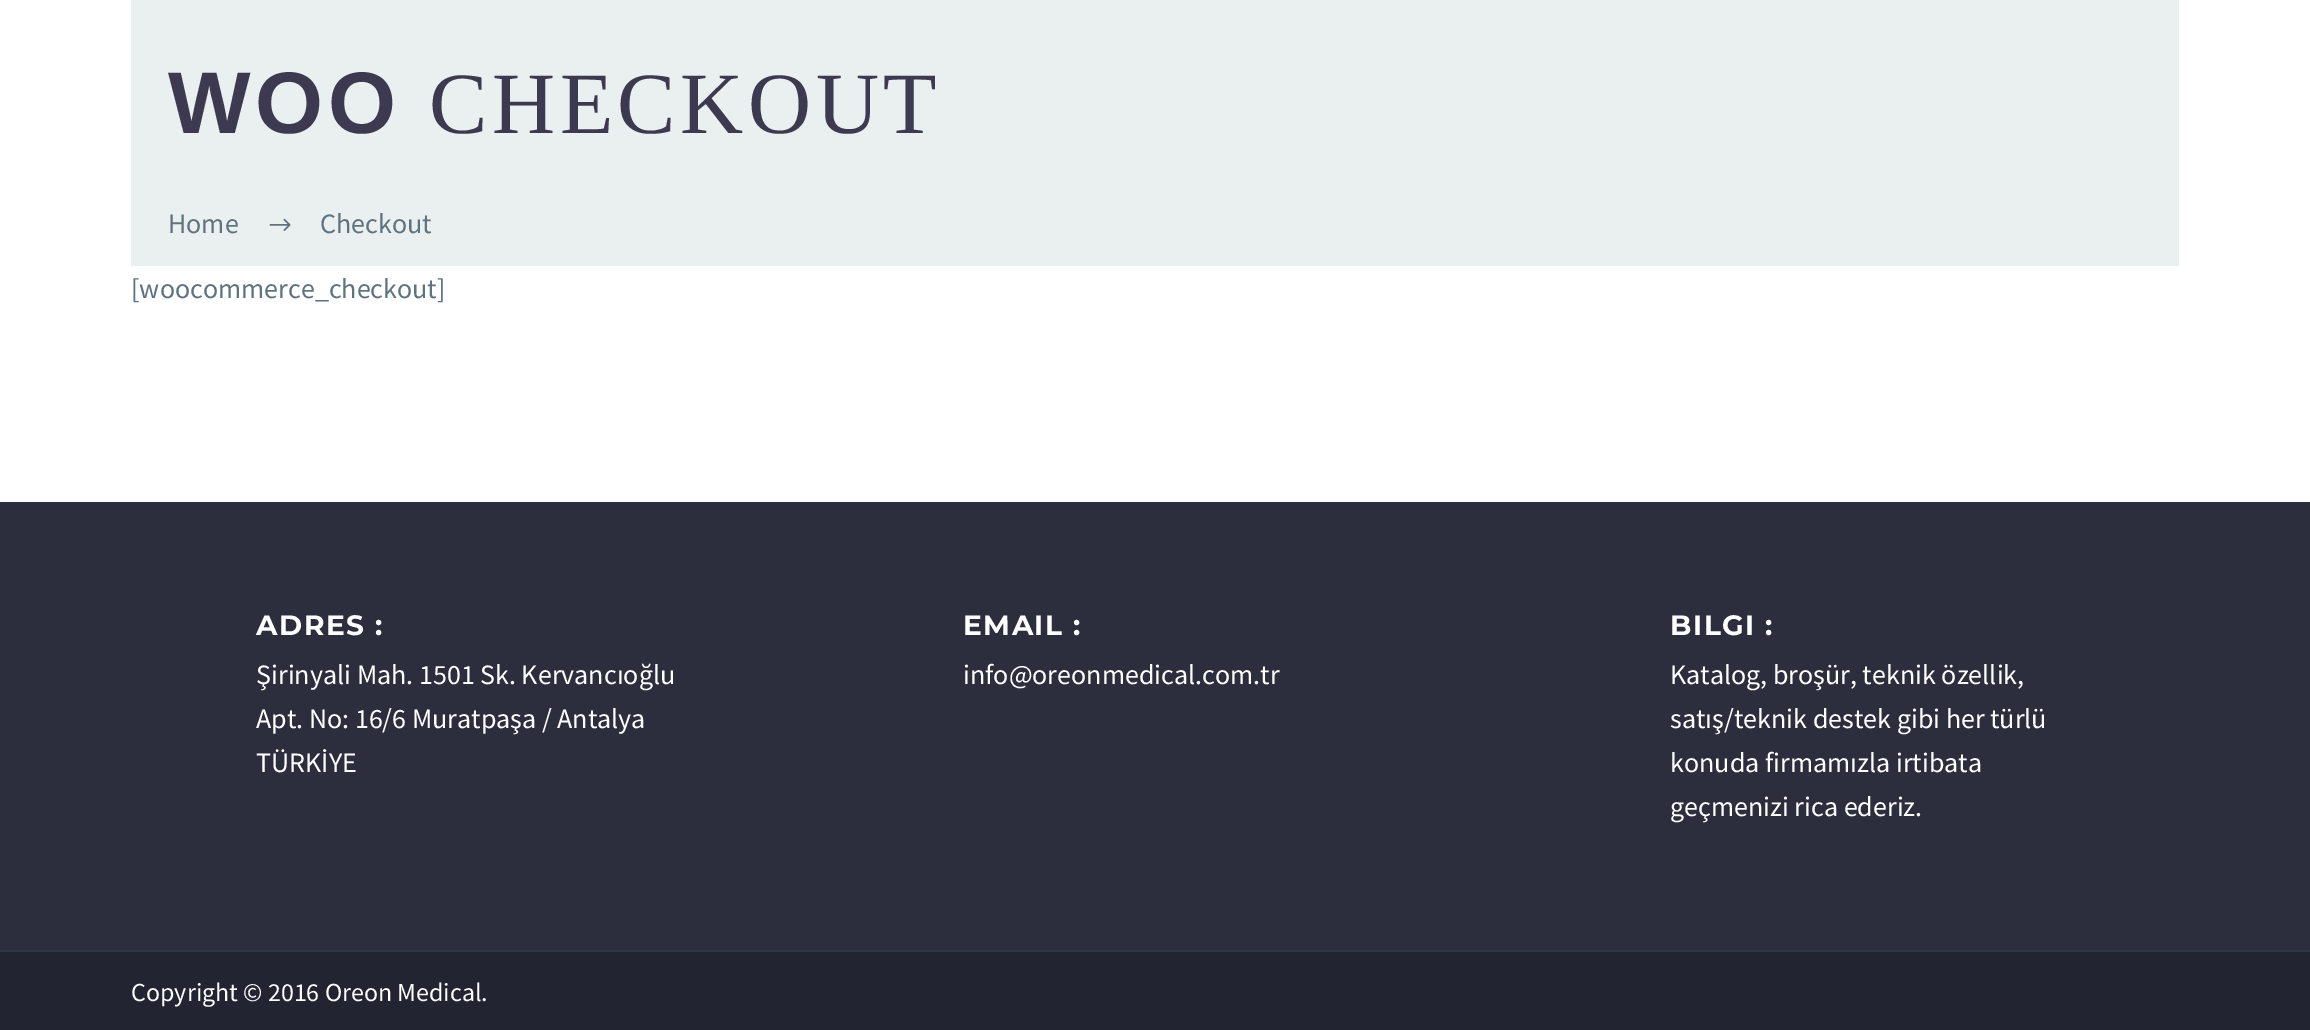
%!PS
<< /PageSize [2310 1030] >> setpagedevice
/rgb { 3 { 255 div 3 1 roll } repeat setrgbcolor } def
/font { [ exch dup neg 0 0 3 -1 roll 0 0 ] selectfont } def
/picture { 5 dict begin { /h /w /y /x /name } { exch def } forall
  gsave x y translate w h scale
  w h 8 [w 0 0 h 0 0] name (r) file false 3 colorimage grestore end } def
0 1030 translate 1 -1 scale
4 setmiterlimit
34 36 49 rgb
0 0 2310 1030 rectfill
255 255 255 rgb
0 0 2310 502 rectfill
233 240 239 rgb
131 0 2048 266 rectfill
(img/1.rgb) 269 218 22 13 picture
44 46 61 rgb
0 502 2310 448 rectfill
49 54 70 rgb
0 950 2310 2 rectfill
/LiberationSans-Bold 87.5 font
60 57 80 rgb
168 133 moveto 4.5 0 (WOO) ashow
/LiberationSerif-Regular 87.5 font
429 133 moveto 4.5 0 (CHECKOUT) ashow
/SourceSansPro-Regular 28 font
95 114 127 rgb
[
  [(Home) 168 233]
  [(Checkout) 320 233]
  [([woocommerce_checkout]) 131 298]
] { aload pop moveto show } forall
/Montserrat-Bold 28 font
255 255 255 rgb
256 635 moveto 1.5 0 (ADRES :) ashow
/SourceSansPro-Regular 28 font
[
  [(Şirinyali Mah. 1501 Sk. Kervancıoğlu) 256 684]
  [(Apt. No: 16/6 Muratpaşa / Antalya) 256 728]
  [(TÜRKİYE) 256 772]
] { aload pop moveto show } forall
/Montserrat-Bold 28 font
963 635 moveto 1.5 0 (EMAIL :) ashow
/SourceSansPro-Regular 28 font
963 684 moveto (info@oreonmedical.com.tr) show
/Montserrat-Bold 28 font
1670 635 moveto 1.5 0 (BILGI :) ashow
/SourceSansPro-Regular 28 font
[
  [(Katalog, broşür, teknik özellik,) 1670 684]
  [(satış/teknik destek gibi her türlü) 1670 728]
  [(konuda firmamızla irtibata) 1670 772]
  [(geçmenizi rica ederiz.) 1670 816]
] { aload pop moveto show } forall
/SourceSansPro-Regular 26 font
131 1001 moveto (Copyright © 2016 Oreon Medical.) show
showpage
